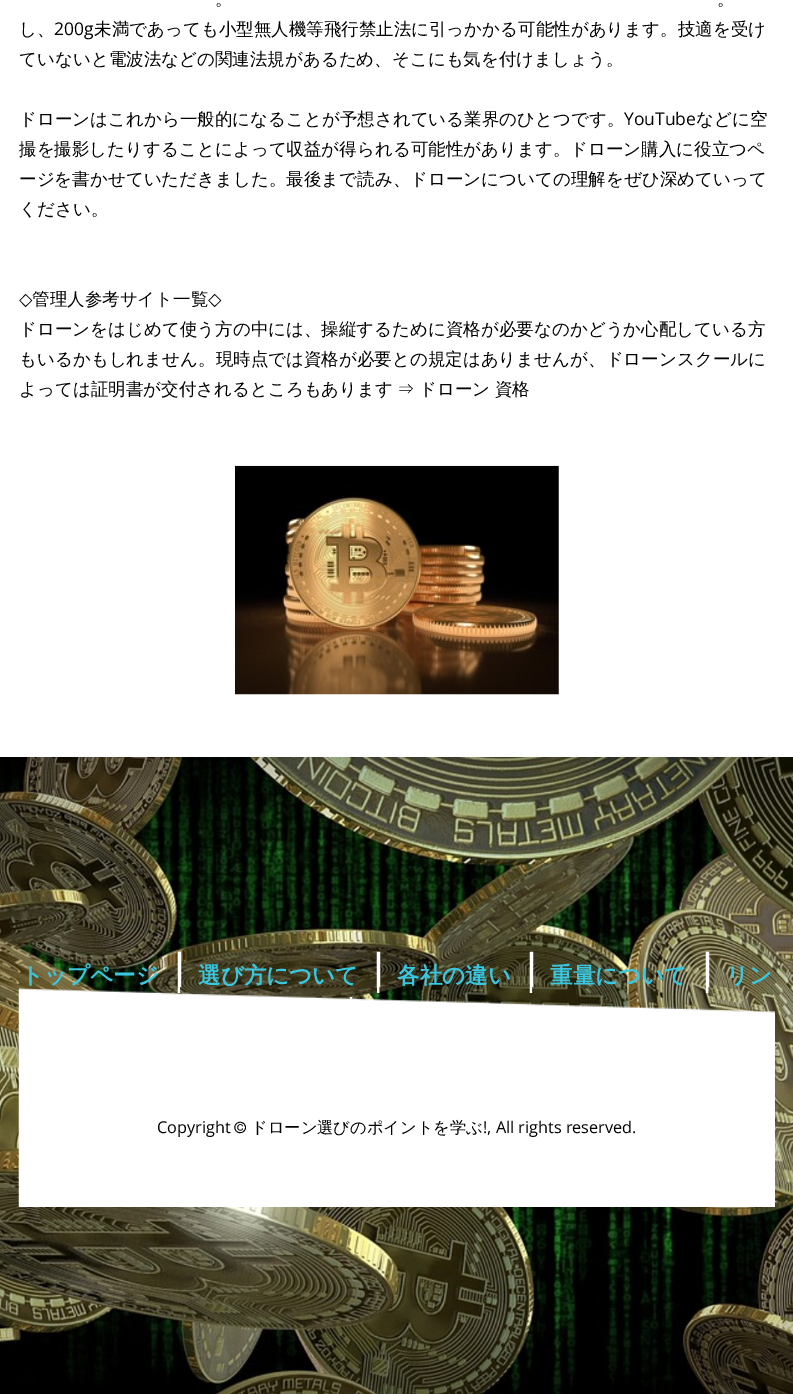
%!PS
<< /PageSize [793 1394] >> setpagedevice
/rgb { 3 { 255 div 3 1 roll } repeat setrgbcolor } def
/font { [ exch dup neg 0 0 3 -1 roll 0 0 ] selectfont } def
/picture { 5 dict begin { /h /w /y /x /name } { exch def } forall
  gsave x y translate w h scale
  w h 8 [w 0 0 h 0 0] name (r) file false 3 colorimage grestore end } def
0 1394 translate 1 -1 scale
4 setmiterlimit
255 255 255 rgb
0 0 793 1394 rectfill
(img/1.rgb) 235 465 324 230 picture
(img/2.rgb) 0 757 793 637 picture
/WenQuanYiZenHei-Medium 17.5 font
0 0 0 rgb
[
  [(。) 215 5]
  [(。) 717 5]
  [(し、) 19 35]
] { aload pop moveto show } forall
/OpenSans-Regular 17.5 font
54 35 moveto (200g) show
/WenQuanYiZenHei-Medium 17.5 font
[
  [(未満であっても小型無人機等飛行禁止法に引っかかる可能性があります。技適を受け) 94 35]
  [(ていないと電波法などの関連法規があるため、そこにも気を付けましょう。) 19 65]
  [(ドローンはこれから一般的になることが予想されている業界のひとつです。) 19 125]
] { aload pop moveto show } forall
/OpenSans-Regular 17.5 font
624 125 moveto (YouTube) show
/WenQuanYiZenHei-Medium 17.5 font
[
  [(などに空) 696 125]
  [(撮を撮影したりすることによって収益が得られる可能性があります。ドローン購入に役立つペ) 19 155]
  [(ージを書かせていただきました。最後まで読み、ドローンについての理解をぜひ深めていって) 19 185]
  [(ください。) 19 215]
] { aload pop moveto show } forall
/DejaVuSans-Regular 17.5 font
19 305 moveto (◇) show
/WenQuanYiZenHei-Medium 17.5 font
32 305 moveto (管理人参考サイト一覧) show
/DejaVuSans-Regular 17.5 font
208 305 moveto (◇) show
/WenQuanYiZenHei-Medium 17.5 font
19 335 moveto (ドローンをはじめて使う方の中には、操縦するために資格が必要なのかどうか心配している方) show
19 365 moveto (もいるかもしれません。現時点では資格が必要との規定はありませんが、ドローンスクールに) show
19 395 moveto -1 0 32 (よっては証明書が交付されるところもあります ⇒ ドローン 資格) widthshow
/WenQuanYiZenHei-Bold 22.5 font
57 200 226 rgb
21 983 moveto (トップページ) show
/WenQuanYiZenHei-Bold 40 font
255 255 255 rgb
159 983 moveto (｜) show
/WenQuanYiZenHei-Bold 22.5 font
57 200 226 rgb
198 983 moveto (選び方について) show
/WenQuanYiZenHei-Bold 40 font
255 255 255 rgb
358 983 moveto (｜) show
/WenQuanYiZenHei-Bold 22.5 font
57 200 226 rgb
397 983 moveto (各社の違い) show
/WenQuanYiZenHei-Bold 40 font
255 255 255 rgb
511 983 moveto (｜) show
/WenQuanYiZenHei-Bold 22.5 font
57 200 226 rgb
550 983 moveto (重量について) show
/WenQuanYiZenHei-Bold 40 font
255 255 255 rgb
687 983 moveto (｜) show
/WenQuanYiZenHei-Bold 22.5 font
57 200 226 rgb
726 983 moveto (リン) show
(img/3.rgb) 18 987 757 220 picture
/OpenSans-Regular 16.25 font
0 0 0 rgb
157 1133 moveto (Copyright) show
/WenQuanYiZenHei-Medium 16.25 font
234 1133 moveto (©) show
251 1133 moveto (ドローン選びのポイントを学ぶ) show
/OpenSans-Regular 16.25 font
483 1133 moveto (!, All rights reserved.) show
showpage
